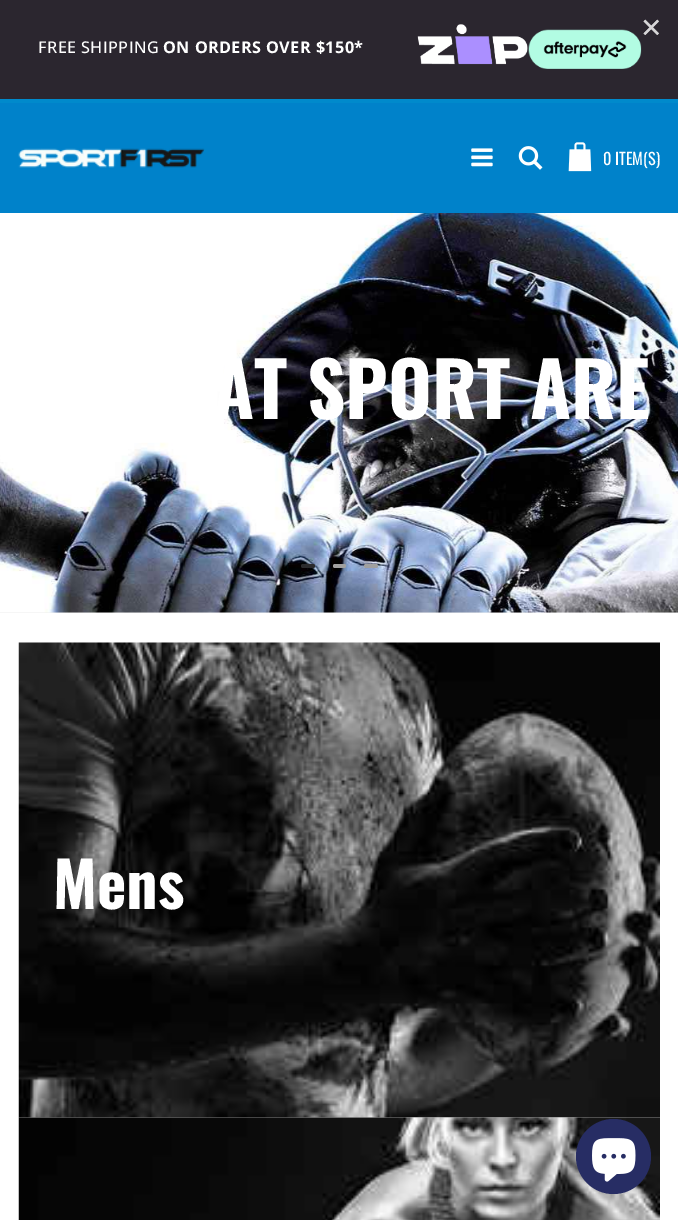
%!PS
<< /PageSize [678 1220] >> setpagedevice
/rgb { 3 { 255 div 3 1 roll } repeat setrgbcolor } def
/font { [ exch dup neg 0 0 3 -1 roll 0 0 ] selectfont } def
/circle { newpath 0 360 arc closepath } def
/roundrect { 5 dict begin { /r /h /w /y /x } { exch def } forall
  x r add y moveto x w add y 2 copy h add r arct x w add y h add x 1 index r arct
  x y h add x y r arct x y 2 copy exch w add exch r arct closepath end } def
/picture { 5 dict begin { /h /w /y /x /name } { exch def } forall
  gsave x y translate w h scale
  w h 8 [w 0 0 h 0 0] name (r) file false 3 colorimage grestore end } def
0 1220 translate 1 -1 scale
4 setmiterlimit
255 255 255 rgb
0 0 678 1220 rectfill
43 38 47 rgb
0 0 678 99 rectfill
(img/1.rgb) 417 24 111 41 picture
(img/2.rgb) 528 29 114 40 picture
0 130 202 rgb
0 103 678 110 rectfill
0 138 204 rgb
0 99 678 4 rectfill
(img/3.rgb) 18 148 187 20 picture
(img/4.rgb) 471 148 22 19 picture
(img/5.rgb) 518 146 25 24 picture
(img/6.rgb) 568 142 24 30 picture
238 238 238 rgb
0 612 678 1 rectfill
(img/7.rgb) 0 213 678 400 picture
43 43 45 rgb
301 564 14 4 2 roundrect fill
160 160 159 rgb
333 564 13 4 2 roundrect fill
364 564 14 4 2 roundrect fill
(img/8.rgb) 18 642 642 476 picture
(img/9.rgb) 18 1117 642 103 picture
39 45 100 rgb
613.5 1156.5 37.5 circle fill
(img/10.rgb) 592 1138 44 44 picture
/LiberationSans-Regular 35 font
181 179 182 rgb
641 39 moveto (×) show
214 213 215 rgb
641 39 moveto (×) show
/OpenSans-Medium 16.25 font
255 255 255 rgb
38 53 moveto 0.4 0 (FREE SHIPPING) ashow
/OpenSans-Bold 16.25 font
163 53 moveto 0.4 0 (ON ORDERS OVER $150*) ashow
/Oswald-Regular 16.25 font
603 165 moveto (0 ITEM\(S\)) show
/Oswald-Bold 75 font
213 419 moveto (AT SPORT ARE) show
/Oswald-Bold 62.5 font
53 909 moveto (Mens) show
showpage
